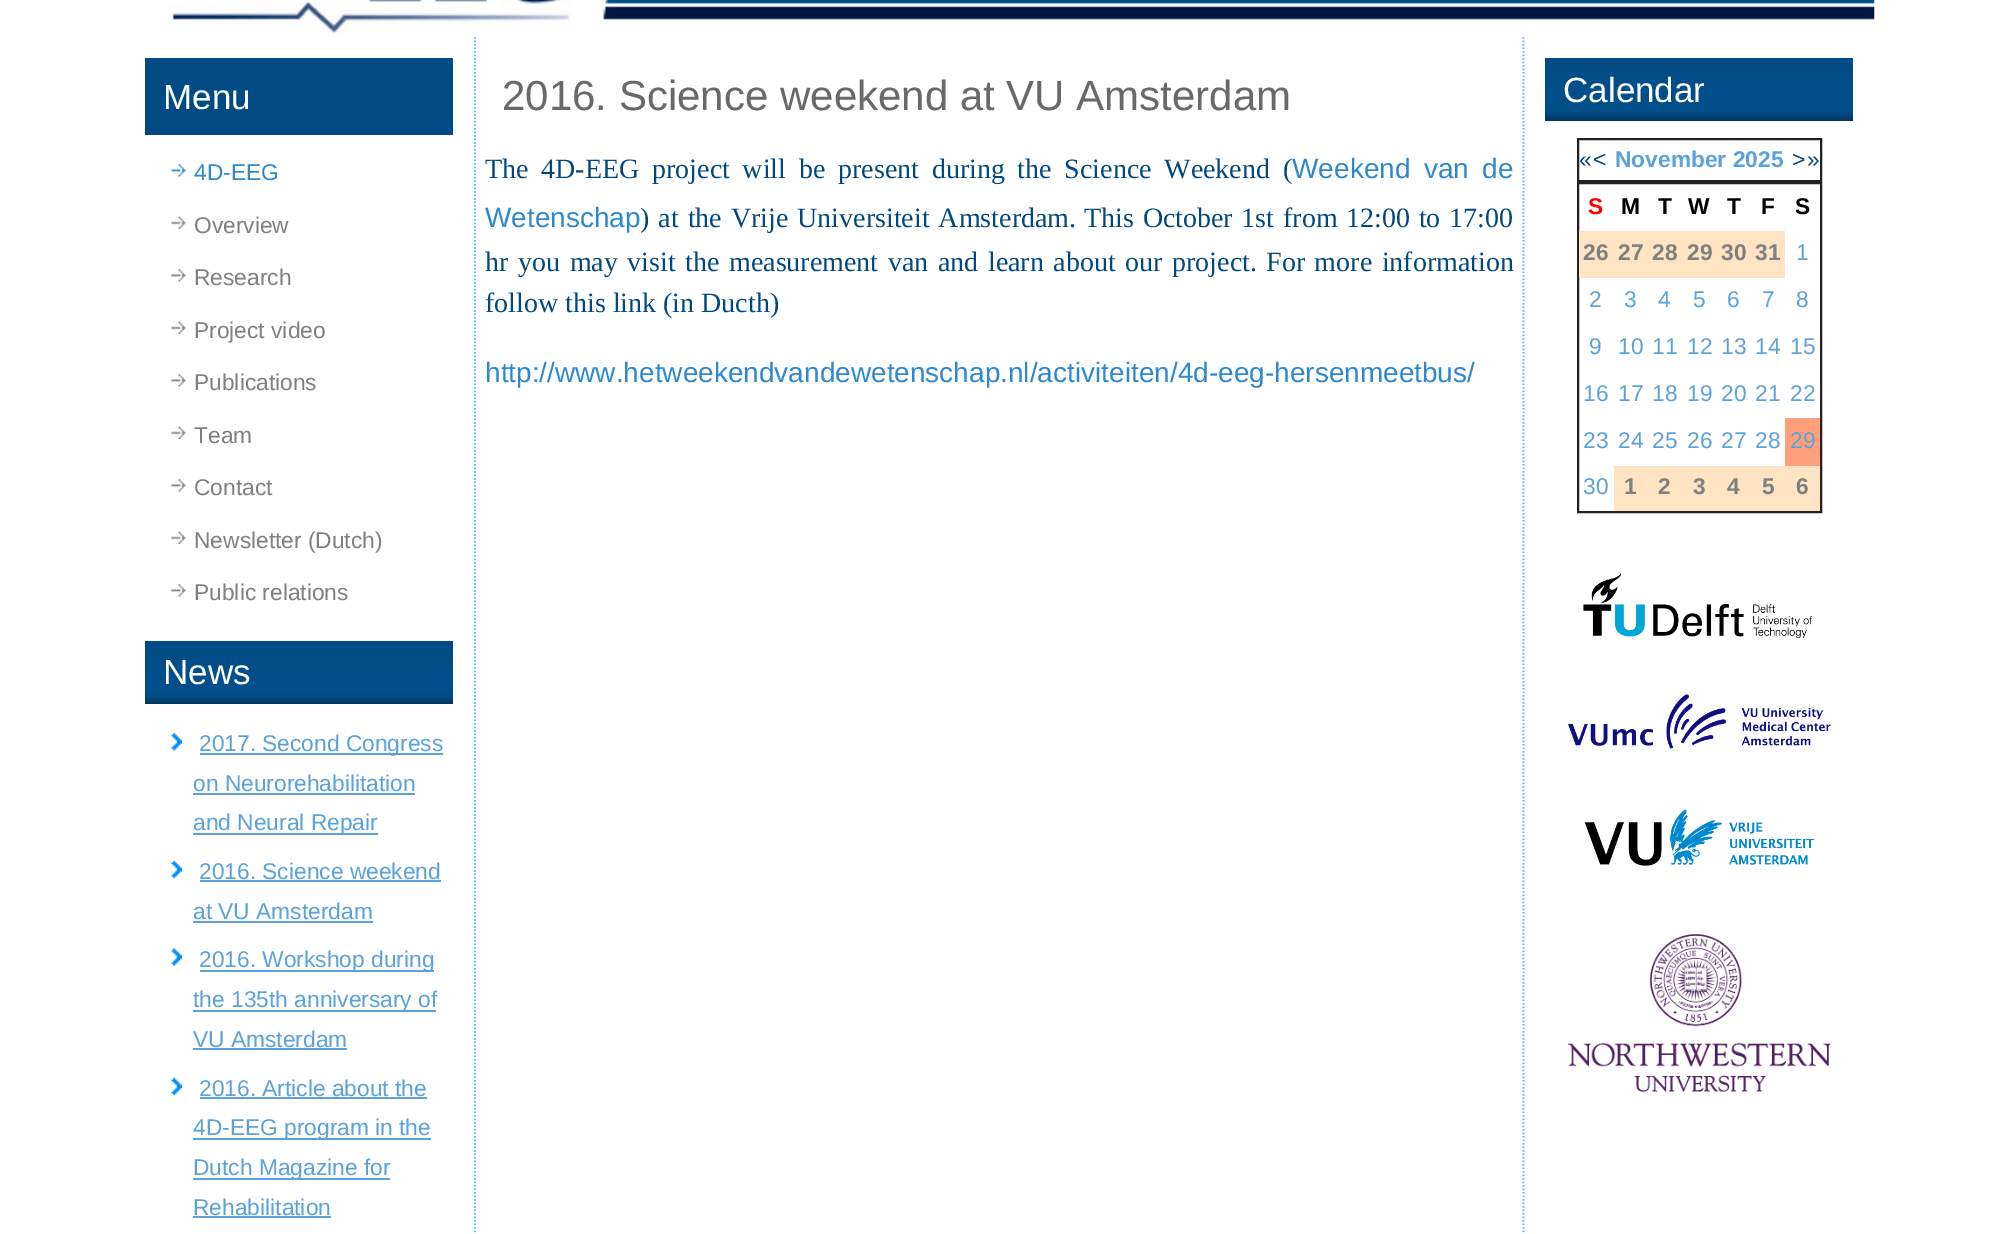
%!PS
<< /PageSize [1998 1234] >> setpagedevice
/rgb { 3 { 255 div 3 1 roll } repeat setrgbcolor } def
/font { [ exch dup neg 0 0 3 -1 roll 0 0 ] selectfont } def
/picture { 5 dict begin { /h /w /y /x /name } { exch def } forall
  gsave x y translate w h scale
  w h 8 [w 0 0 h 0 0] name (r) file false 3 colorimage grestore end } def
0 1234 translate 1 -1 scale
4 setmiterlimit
255 255 255 rgb
0 0 1998 1234 rectfill
(img/1.rgb) 168 0 1707 34 picture
107 191 255 rgb
1.8 setlinewidth
[1.75 1.75] 0 setdash
475 37 moveto 475 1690.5 lineto stroke
0 75 133 rgb
145 58 308 77 rectfill
(img/2.rgb) 171 164 15 13 picture
(img/3.rgb) 171 216 15 13 picture
(img/4.rgb) 171 269 15 13 picture
(img/3.rgb) 171 321 15 13 picture
(img/4.rgb) 171 374 15 13 picture
(img/3.rgb) 171 426 15 13 picture
(img/4.rgb) 171 479 15 13 picture
(img/3.rgb) 171 531 15 13 picture
(img/4.rgb) 171 584 15 13 picture
gsave 145 641 moveto 453 641 lineto 453 704 lineto 145 704 lineto closepath clip newpath
<< /ShadingType 2 /ColorSpace /DeviceRGB /Coords [299 641 299 704] /Extend [true true] /Function << /FunctionType 3 /Domain [0 1] /Functions [<< /FunctionType 2 /Domain [0 1] /C0 [0 0.294 0.522] /C1 [0 0.306 0.541] /N 1 >> << /FunctionType 2 /Domain [0 1] /C0 [0 0.306 0.541] /C1 [0 0.306 0.541] /N 1 >> << /FunctionType 2 /Domain [0 1] /C0 [0 0.306 0.541] /C1 [0 0.216 0.38] /N 1 >>] /Bounds [0.4 0.85] /Encode [0 1 0 1 0 1] >> >> shfill grestore
(img/5.rgb) 171 733 11 18 picture
[
  [200 753 243 2 91 162 220]
  [193 793 222 2 91 162 220]
  [193 833 185 2 91 162 220]
] { aload pop rgb rectfill } forall
(img/6.rgb) 171 860 11 19 picture
200 880 241 2 rectfill
193 921 180 2 rectfill
(img/7.rgb) 171 948 11 18 picture
[
  [200 970 234 2 91 162 220]
  [193 1010 243 2 91 162 220]
  [193 1048 154 2 91 162 220]
] { aload pop rgb rectfill } forall
(img/6.rgb) 171 1077 11 19 picture
[
  [200 1097 227 2 91 162 220]
  [193 1138 238 2 91 162 220]
  [193 1178 197 2 91 162 220]
  [193 1216 138 2 91 162 220]
] { aload pop rgb rectfill } forall
107 191 255 rgb
1523.5 37 moveto 1523.5 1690.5 lineto stroke
gsave 1545 58 moveto 1853 58 lineto 1853 121 lineto 1545 121 lineto closepath clip newpath
<< /ShadingType 2 /ColorSpace /DeviceRGB /Coords [1699 58 1699 121] /Extend [true true] /Function << /FunctionType 3 /Domain [0 1] /Functions [<< /FunctionType 2 /Domain [0 1] /C0 [0 0.294 0.522] /C1 [0 0.306 0.541] /N 1 >> << /FunctionType 2 /Domain [0 1] /C0 [0 0.306 0.541] /C1 [0 0.306 0.541] /N 1 >> << /FunctionType 2 /Domain [0 1] /C0 [0 0.306 0.541] /C1 [0 0.216 0.38] /N 1 >>] /Bounds [0.4 0.85] /Encode [0 1 0 1 0 1] >> >> shfill grestore
34 34 34 rgb
2 setlinewidth
[] 0 setdash
1578 139 243 42 rectstroke
1578 183 243 329 rectstroke
[
  [1579 231 206 47 255 228 196]
  [1785 418 35 48 255 160 122]
  [1614 466 206 45 255 228 196]
] { aload pop rgb rectfill } forall
(img/8.rgb) 1583 573 230 65 picture
(img/9.rgb) 1568 694 263 55 picture
(img/10.rgb) 1584 809 231 57 picture
(img/11.rgb) 1568 934 263 158 picture
/LiberationSans-Regular 35 font
255 255 255 rgb
163 109 moveto (Menu) show
/LiberationSans-Regular 22.75 font
45 136 210 rgb
194 180 moveto (4D-EEG) show
128 128 128 rgb
[
  [(Overview) 194 233]
  [(Research) 194 285]
  [(Project video) 194 338]
  [(Publications) 194 390]
  [(Team) 194 443]
  [(Contact) 194 495]
  [(Newsletter \(Dutch\)) 194 548]
  [(Public relations) 194 600]
] { aload pop moveto show } forall
/LiberationSans-Regular 35 font
255 255 255 rgb
163 684 moveto (News) show
/LiberationSans-Regular 22.75 font
91 162 220 rgb
[
  [(2017. Second Congress) 199 751]
  [(on Neurorehabilitation) 193 791]
  [(and Neural Repair) 193 830]
  [(2016. Science weekend) 199 879]
  [(at VU Amsterdam) 193 919]
  [(2016. Workshop during) 199 967]
  [(the 135th anniversary of) 193 1007]
  [(VU Amsterdam) 193 1047]
  [(2016. Article about the) 199 1096]
  [(4D-EEG program in the) 193 1135]
  [(Dutch Magazine for) 193 1175]
  [(Rehabilitation) 193 1215]
] { aload pop moveto show } forall
/LiberationSans-Regular 42 font
105 105 105 rgb
502 110 moveto (2016. Science weekend at VU Amsterdam) show
/LiberationSerif-Regular 28 font
0 72 128 rgb
485 178 moveto 5.75 0 32 (The 4D-EEG project will be present during the Science Weekend \() widthshow
/LiberationSans-Regular 28 font
45 136 210 rgb
1292 178 moveto 5.75 0 32 (Weekend van de) widthshow
485 227 moveto (Wetenschap) show
/LiberationSerif-Regular 28 font
0 72 128 rgb
640 227 moveto 2 0 32 (\) at the Vrije Universiteit Amsterdam.) widthshow
1084 227 moveto 1.75 0 32 (This October 1st from 12:00 to 17:00) widthshow
485 271 moveto 2.6 0 32 (hr you may visit the measurement van and learn about our project.) widthshow
1266 271 moveto 2.6 0 32 (For more information) widthshow
485 312 moveto (follow this link \(in Ducth\)) show
/LiberationSans-Regular 28 font
45 136 210 rgb
485 382 moveto (http://www.hetweekendvandewetenschap.nl/activiteiten/4d-eeg-hersenmeetbus/) show
/LiberationSans-Regular 35 font
255 255 255 rgb
1563 102 moveto (Calendar) show
/LiberationSans-Regular 22.75 font
0 72 128 rgb
1579 167 moveto («) show
1593 167 moveto (<) show
/LiberationSans-Bold 22.75 font
91 162 220 rgb
1615 167 moveto (November 2025) show
/LiberationSans-Regular 22.75 font
0 72 128 rgb
1792 167 moveto (>) show
1807 167 moveto (») show
/LiberationSans-Bold 22.75 font
255 0 0 rgb
1588 214 moveto (S) show
0 0 0 rgb
[
  [(M) 1621 214]
  [(T) 1658 214]
  [(W) 1688 214]
  [(T) 1727 214]
  [(F) 1761 214]
  [(S) 1795 214]
] { aload pop moveto show } forall
128 128 128 rgb
[
  [(26) 1583 260]
  [(27) 1618 260]
  [(28) 1652 260]
  [(29) 1687 260]
  [(30) 1721 260]
  [(31) 1755 260]
] { aload pop moveto show } forall
/LiberationSans-Regular 22.75 font
91 162 220 rgb
[
  [(1) 1796 260]
  [(2) 1589 307]
  [(3) 1624 307]
  [(4) 1658 307]
  [(5) 1693 307]
  [(6) 1727 307]
  [(7) 1762 307]
  [(8) 1796 307]
  [(9) 1589 354]
  [(10) 1618 354]
  [(11) 1652 354]
  [(12) 1687 354]
  [(13) 1721 354]
  [(14) 1755 354]
  [(15) 1790 354]
  [(16) 1583 401]
  [(17) 1618 401]
  [(18) 1652 401]
  [(19) 1687 401]
  [(20) 1721 401]
  [(21) 1755 401]
  [(22) 1790 401]
  [(23) 1583 448]
  [(24) 1618 448]
  [(25) 1652 448]
  [(26) 1687 448]
  [(27) 1721 448]
  [(28) 1755 448]
  [(29) 1790 448]
  [(30) 1583 494]
] { aload pop moveto show } forall
/LiberationSans-Bold 22.75 font
128 128 128 rgb
[
  [(1) 1624 494]
  [(2) 1658 494]
  [(3) 1693 494]
  [(4) 1727 494]
  [(5) 1762 494]
  [(6) 1796 494]
] { aload pop moveto show } forall
showpage
